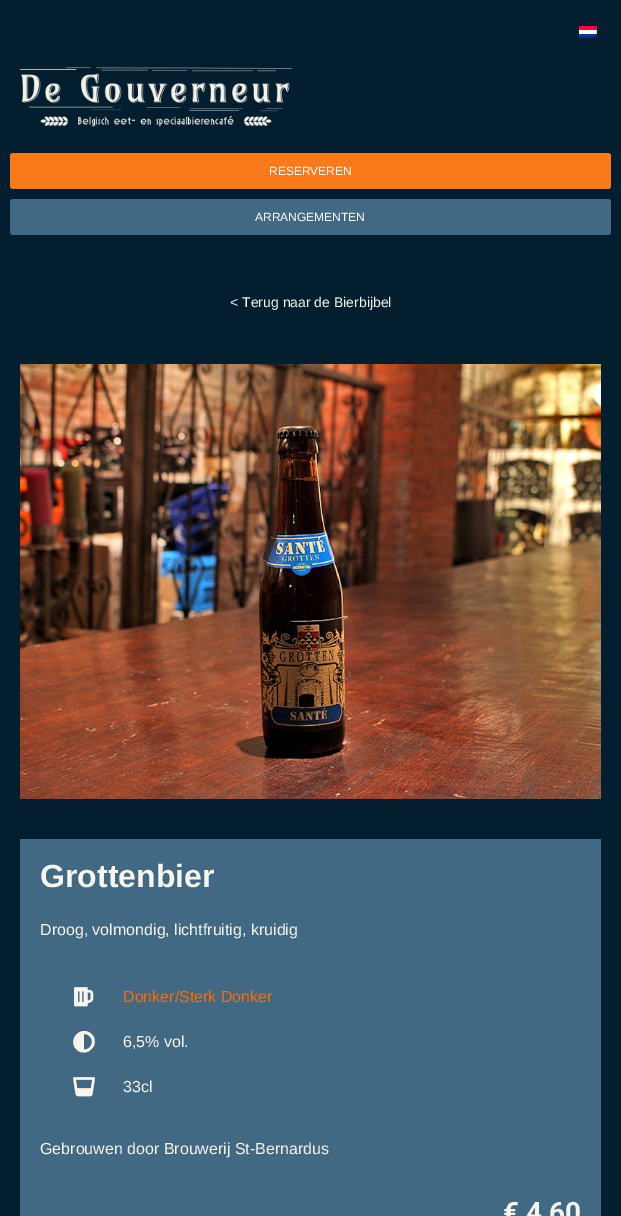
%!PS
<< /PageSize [621 1216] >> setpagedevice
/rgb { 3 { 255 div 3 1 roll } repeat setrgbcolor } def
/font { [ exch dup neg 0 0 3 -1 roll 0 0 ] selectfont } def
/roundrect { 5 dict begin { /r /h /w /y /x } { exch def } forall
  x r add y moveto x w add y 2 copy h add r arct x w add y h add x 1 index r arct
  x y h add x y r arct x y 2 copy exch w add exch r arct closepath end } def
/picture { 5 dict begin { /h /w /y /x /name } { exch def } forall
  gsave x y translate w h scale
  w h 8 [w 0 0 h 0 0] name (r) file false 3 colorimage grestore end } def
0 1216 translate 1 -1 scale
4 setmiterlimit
3 30 47 rgb
0 0 621 1216 rectfill
(img/1.rgb) 579 26 18 12 picture
(img/2.rgb) 20 66 273 61 picture
250 122 27 rgb
10 153 601 36 3 roundrect fill
65 105 131 rgb
10 199 601 36 3 roundrect fill
(img/3.rgb) 20 364 581 435 picture
20 839 581 377 rectfill
(img/4.rgb) 74 987 20 20 picture
247 245 236 rgb
76.5 1049.5 moveto 66.5 1039.5 81.5 1024.5 91.5 1034 curveto 101.5 1044 86.5 1059 76.5 1049.5 curveto closepath 84 1049.5 moveto 94.5 1049.5 94.5 1034 84 1034 curveto closepath fill
(img/5.rgb) 73 1077 22 20 picture
/LiberationSans-Regular 12 font
255 255 255 rgb
269 175 moveto (RESERVEREN) show
255 221 moveto (ARRANGEMENTEN) show
/LiberationSans-Regular 14 font
247 245 236 rgb
230 307 moveto (< Terug naar de Bierbijbel) show
/LiberationSans-Bold 32 font
40 887 moveto (Grottenbier) show
/LiberationSans-Regular 16 font
40 935 moveto (Droog, volmondig, lichtfruitig, kruidig) show
255 105 0 rgb
123 1002 moveto (Donker/Sterk Donker) show
247 245 236 rgb
[
  [(6,5% vol.) 123 1047]
  [(33cl) 123 1092]
  [(Gebrouwen door Brouwerij St-Bernardus) 40 1154]
] { aload pop moveto show } forall
/Roboto-Bold 28 font
503 1222 moveto (€ 4,60) show
showpage
